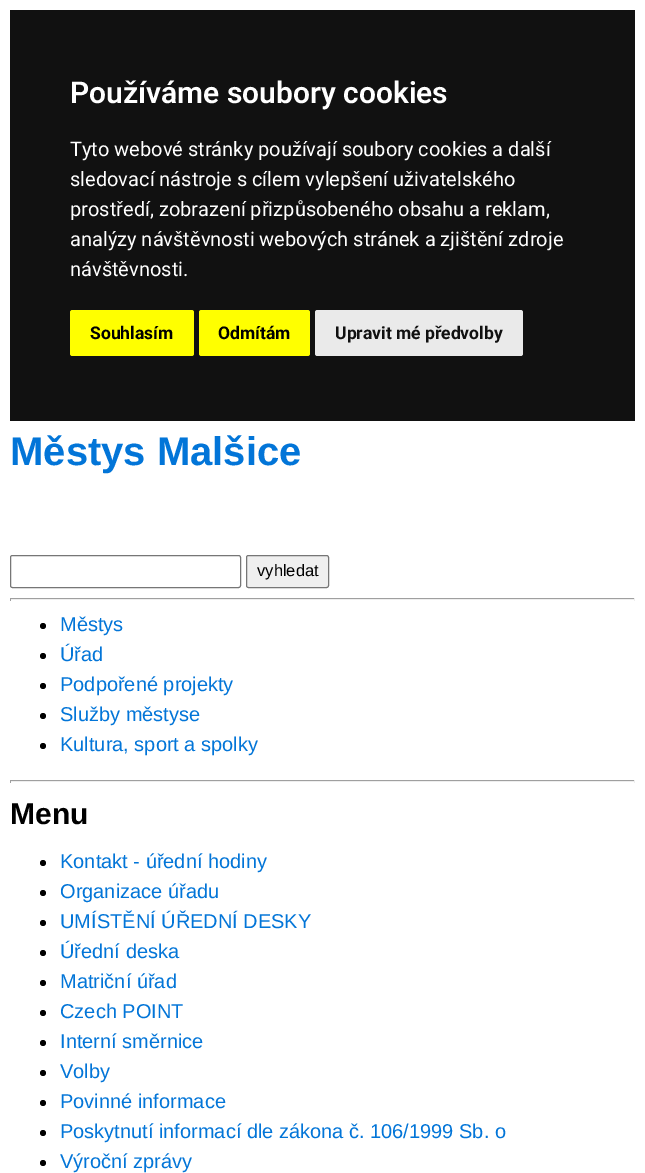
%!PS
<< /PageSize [645 1173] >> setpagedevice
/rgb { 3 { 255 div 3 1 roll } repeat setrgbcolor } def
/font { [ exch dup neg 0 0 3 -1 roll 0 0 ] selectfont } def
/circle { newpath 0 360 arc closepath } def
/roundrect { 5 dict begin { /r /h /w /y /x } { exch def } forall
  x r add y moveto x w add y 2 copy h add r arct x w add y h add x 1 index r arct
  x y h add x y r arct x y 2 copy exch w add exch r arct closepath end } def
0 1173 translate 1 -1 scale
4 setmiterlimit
255 255 255 rgb
0 0 645 1173 rectfill
17 17 17 rgb
10 10 625 411 rectfill
255 255 0 rgb
70 310 124 46 2.5 roundrect fill
199 310 111 46 2.5 roundrect fill
234 234 234 rgb
315 310 208 46 2.5 roundrect fill
118 118 118 rgb
10.5 555.5 230 32 2 roundrect stroke
239 239 239 rgb
246.5 555.5 82 32 2 roundrect gsave fill grestore
118 118 118 rgb
stroke
[
  [10 598 625 1 159 159 159]
  [634 598 1 3 238 238 238]
  [10 599 625 1 238 238 238]
  [10 598 1 3 159 159 159]
] { aload pop rgb rectfill } forall
0 0 0 rgb
43 626 3 circle fill
43 656 3 circle fill
43 686 3 circle fill
43 716 3 circle fill
43 746 3 circle fill
[
  [10 780 625 1 159 159 159]
  [634 780 1 3 238 238 238]
  [10 781 625 1 238 238 238]
  [10 780 1 3 159 159 159]
] { aload pop rgb rectfill } forall
0 0 0 rgb
43 863 3 circle fill
43 893 3 circle fill
43 923 3 circle fill
43 953 3 circle fill
43 983 3 circle fill
43 1013 3 circle fill
43 1043 3 circle fill
43 1073 3 circle fill
43 1103 3 circle fill
43 1133 3 circle fill
43 1163 3 circle fill
/Roboto-SemiBold 30 font
255 255 255 rgb
70 103 moveto (Používáme soubory cookies) show
/Roboto-Regular 20 font
[
  [(Tyto webové stránky používají soubory cookies a další) 70 156]
  [(sledovací nástroje s cílem vylepšení uživatelského) 70 186]
  [(prostředí, zobrazení přizpůsobeného obsahu a reklam,) 70 216]
  [(analýzy návštěvnosti webových stránek a zjištění zdroje) 70 246]
  [(návštěvnosti.) 70 276]
] { aload pop moveto show } forall
/Roboto-Bold 17.5 font
0 0 0 rgb
90 339 moveto (Souhlasím) show
218 339 moveto (Odmítám) show
17 17 17 rgb
335 339 moveto (Upravit mé předvolby) show
/LiberationSans-Bold 40 font
2 117 216 rgb
10 465 moveto (Městys Malšice) show
/LiberationSans-Regular 16.5 font
0 0 0 rgb
257 576 moveto (vyhledat) show
/LiberationSans-Regular 20 font
2 117 216 rgb
[
  [(Městys) 60 631]
  [(Úřad) 60 661]
  [(Podpořené projekty) 60 691]
  [(Služby městyse) 60 721]
  [(Kultura, sport a spolky) 60 751]
] { aload pop moveto show } forall
/LiberationSans-Bold 30 font
0 0 0 rgb
10 824 moveto (Menu) show
/LiberationSans-Regular 20 font
2 117 216 rgb
[
  [(Kontakt - úřední hodiny) 60 868]
  [(Organizace úřadu) 60 898]
  [(UMÍSTĚNÍ ÚŘEDNÍ DESKY) 60 928]
  [(Úřední deska) 60 958]
  [(Matriční úřad) 60 988]
  [(Czech POINT) 60 1018]
  [(Interní směrnice) 60 1048]
  [(Volby) 60 1078]
  [(Povinné informace) 60 1108]
  [(Poskytnutí informací dle zákona č. 106/1999 Sb. o) 60 1138]
  [(Výroční zprávy) 60 1168]
] { aload pop moveto show } forall
showpage
